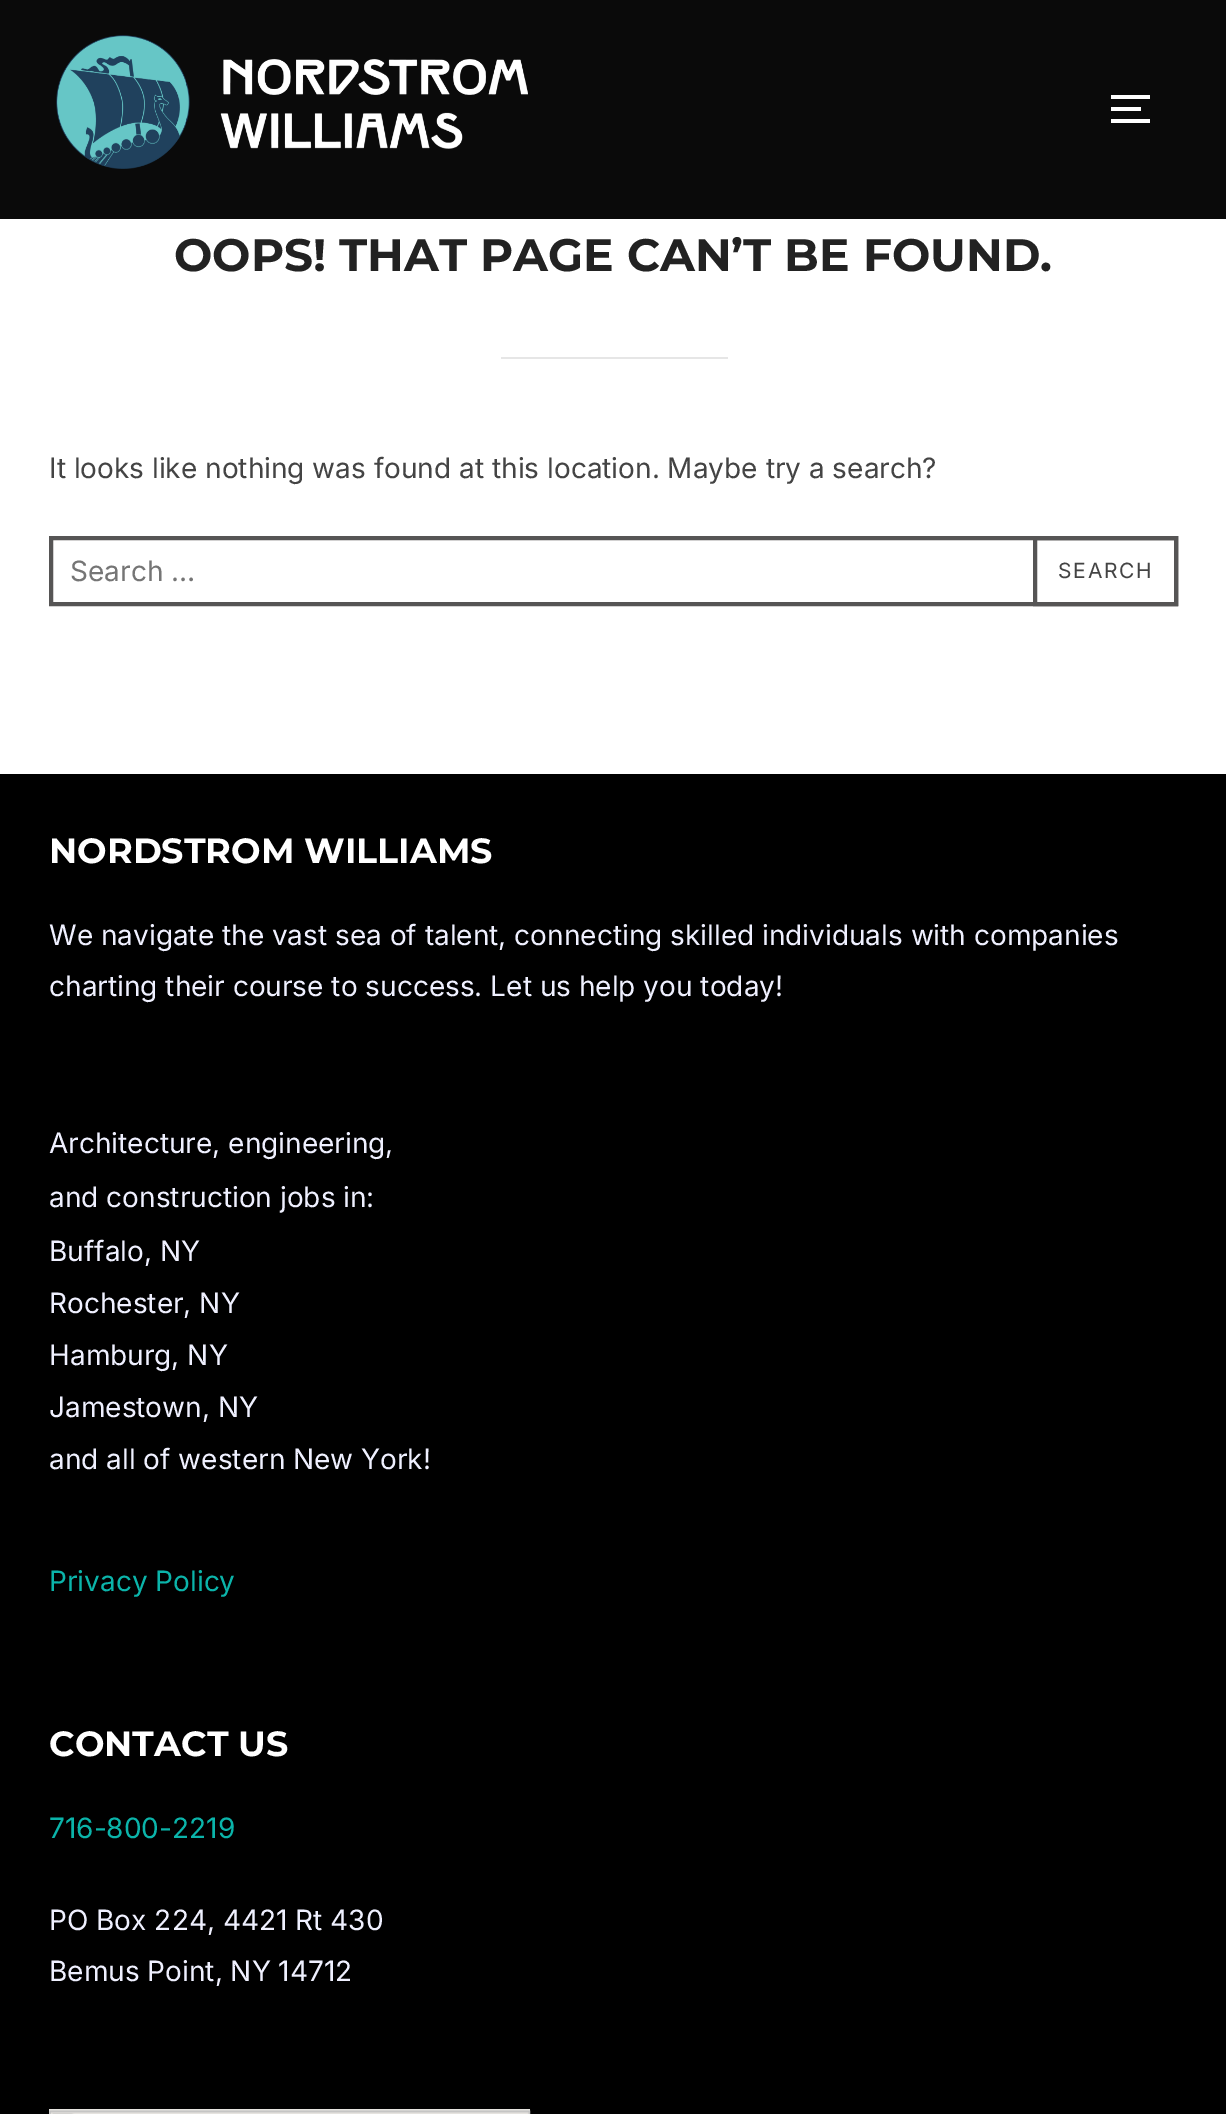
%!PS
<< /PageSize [1226 2114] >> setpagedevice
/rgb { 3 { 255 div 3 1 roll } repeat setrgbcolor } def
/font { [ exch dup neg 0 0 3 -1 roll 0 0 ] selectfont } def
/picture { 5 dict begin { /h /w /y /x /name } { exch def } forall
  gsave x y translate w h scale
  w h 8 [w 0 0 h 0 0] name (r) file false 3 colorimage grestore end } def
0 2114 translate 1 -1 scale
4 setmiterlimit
255 255 255 rgb
0 0 1226 2114 rectfill
10 10 10 rgb
0 0 1226 219 rectfill
(img/1.rgb) 56 35 472 134 picture
[
  [1111 95 39 4 255 255 255]
  [1111 107 30 4 255 255 255]
  [1111 119 39 4 255 255 255]
  [501 357 227 2 230 230 230]
] { aload pop rgb rectfill } forall
86 85 85 rgb
4 setlinewidth
51 538 1125 66 rectstroke
1035 538 141 66 rectstroke
0 0 0 rgb
0 774 1226 1340 rectfill
(img/2.rgb) 49 2109 482 5 picture
/Montserrat-Bold 45.5 font
34 34 34 rgb
174 271 moveto (OOPS! THAT PAGE CAN’T BE FOUND.) show
/Inter-Regular 28 font
68 68 68 rgb
49 478 moveto (It looks like nothing was found at this location. Maybe try a search?) show
117 117 117 rgb
70 581 moveto (Search …) show
/Inter-Regular 21 font
68 68 68 rgb
1058 578 moveto 1.75 0 (SEARCH) ashow
/Montserrat-Bold 35 font
255 255 255 rgb
49 863 moveto (NORDSTROM WILLIAMS) show
/Inter-Regular 28 font
239 240 255 rgb
[
  [(We navigate the vast sea of talent, connecting skilled individuals with companies) 49 945]
  [(charting their course to success. Let us help you today!) 49 996]
  [(Architecture, engineering,) 49 1153]
  [(and construction jobs in:) 49 1207]
  [(Buffalo, NY) 49 1261]
  [(Rochester, NY) 49 1313]
  [(Hamburg, NY) 49 1365]
  [(Jamestown, NY) 49 1417]
  [(and all of western New York!) 49 1469]
] { aload pop moveto show } forall
11 180 170 rgb
49 1591 moveto (Privacy Policy) show
/Montserrat-Bold 35 font
255 255 255 rgb
49 1756 moveto (CONTACT US) show
/Inter-Regular 28 font
11 180 170 rgb
49 1838 moveto (716-800-2219) show
239 240 255 rgb
49 1930 moveto (PO Box 224, 4421 Rt 430) show
49 1981 moveto (Bemus Point, NY 14712) show
showpage
